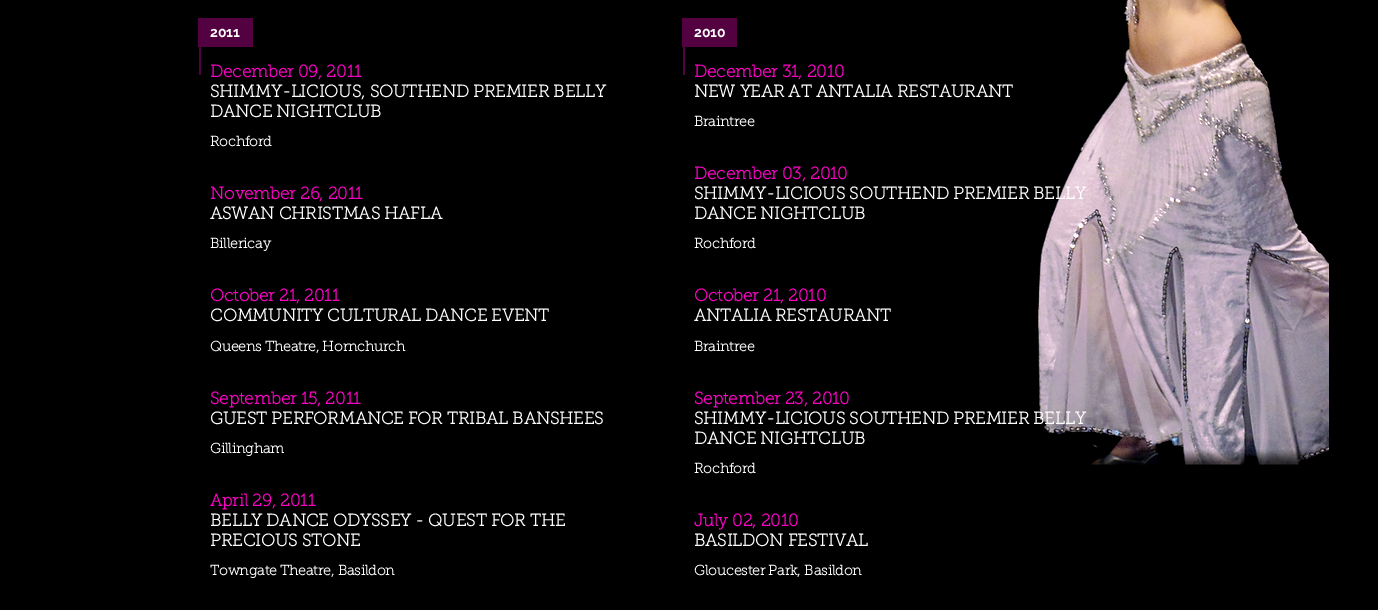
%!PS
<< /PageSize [1378 610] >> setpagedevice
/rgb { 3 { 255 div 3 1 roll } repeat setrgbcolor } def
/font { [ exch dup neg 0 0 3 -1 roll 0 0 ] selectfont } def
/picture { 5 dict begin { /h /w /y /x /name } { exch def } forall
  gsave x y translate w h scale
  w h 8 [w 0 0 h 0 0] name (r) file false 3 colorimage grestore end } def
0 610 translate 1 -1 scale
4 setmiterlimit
0 0 0 rgb
0 0 1378 610 rectfill
[
  [198 18 55 29 83 1 65]
  [199 47 2 28 83 1 65]
  [682 18 55 29 83 1 65]
  [683 47 2 28 83 1 65]
] { aload pop rgb rectfill } forall
(img/1.rgb) 1038 0 291 465 picture
/Raleway-Bold 14 font
255 255 255 rgb
210 37 moveto (2011) show
694 37 moveto (2010) show
/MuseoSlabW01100-Bold 17 font
249 4 195 rgb
210 77 moveto (December 09, 2011) show
255 255 255 rgb
210 97 moveto (SHIMMY-LICIOUS, SOUTHEND PREMIER BELLY) show
210 117 moveto (DANCE NIGHTCLUB) show
/MuseoSlabW01100-Bold 14 font
210 146 moveto (Rochford) show
/MuseoSlabW01100-Bold 17 font
249 4 195 rgb
210 199 moveto (November 26, 2011) show
255 255 255 rgb
210 219 moveto (ASWAN CHRISTMAS HAFLA) show
/MuseoSlabW01100-Bold 14 font
210 248 moveto (Billericay) show
/MuseoSlabW01100-Bold 17 font
249 4 195 rgb
210 301 moveto (October 21, 2011) show
255 255 255 rgb
210 321 moveto (COMMUNITY CULTURAL DANCE EVENT) show
/MuseoSlabW01100-Bold 14 font
210 351 moveto (Queens Theatre, Hornchurch) show
/MuseoSlabW01100-Bold 17 font
249 4 195 rgb
210 404 moveto (September 15, 2011) show
255 255 255 rgb
210 424 moveto (GUEST PERFORMANCE FOR TRIBAL BANSHEES) show
/MuseoSlabW01100-Bold 14 font
210 453 moveto (Gillingham) show
/MuseoSlabW01100-Bold 17 font
249 4 195 rgb
210 506 moveto (April 29, 2011) show
255 255 255 rgb
210 526 moveto (BELLY DANCE ODYSSEY - QUEST FOR THE) show
210 546 moveto (PRECIOUS STONE) show
/MuseoSlabW01100-Bold 14 font
210 575 moveto (Towngate Theatre, Basildon) show
/MuseoSlabW01100-Bold 17 font
249 4 195 rgb
694 77 moveto (December 31, 2010) show
255 255 255 rgb
694 97 moveto (NEW YEAR AT ANTALIA RESTAURANT) show
/MuseoSlabW01100-Bold 14 font
694 126 moveto (Braintree) show
/MuseoSlabW01100-Bold 17 font
249 4 195 rgb
694 179 moveto (December 03, 2010) show
255 255 255 rgb
694 199 moveto (SHIMMY-LICIOUS SOUTHEND PREMIER BELLY) show
694 219 moveto (DANCE NIGHTCLUB) show
/MuseoSlabW01100-Bold 14 font
694 248 moveto (Rochford) show
/MuseoSlabW01100-Bold 17 font
249 4 195 rgb
694 301 moveto (October 21, 2010) show
255 255 255 rgb
694 321 moveto (ANTALIA RESTAURANT) show
/MuseoSlabW01100-Bold 14 font
694 351 moveto (Braintree) show
/MuseoSlabW01100-Bold 17 font
249 4 195 rgb
694 404 moveto (September 23, 2010) show
255 255 255 rgb
694 424 moveto (SHIMMY-LICIOUS SOUTHEND PREMIER BELLY) show
694 444 moveto (DANCE NIGHTCLUB) show
/MuseoSlabW01100-Bold 14 font
694 473 moveto (Rochford) show
/MuseoSlabW01100-Bold 17 font
249 4 195 rgb
694 526 moveto (July 02, 2010) show
255 255 255 rgb
694 546 moveto (BASILDON FESTIVAL) show
/MuseoSlabW01100-Bold 14 font
694 575 moveto (Gloucester Park, Basildon) show
showpage
